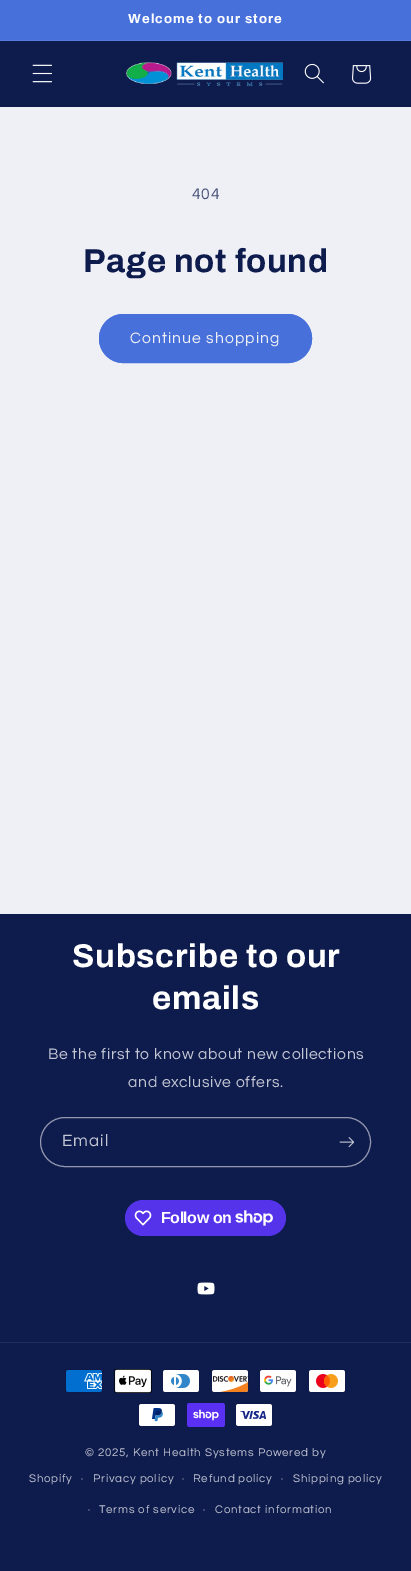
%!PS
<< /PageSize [411 1571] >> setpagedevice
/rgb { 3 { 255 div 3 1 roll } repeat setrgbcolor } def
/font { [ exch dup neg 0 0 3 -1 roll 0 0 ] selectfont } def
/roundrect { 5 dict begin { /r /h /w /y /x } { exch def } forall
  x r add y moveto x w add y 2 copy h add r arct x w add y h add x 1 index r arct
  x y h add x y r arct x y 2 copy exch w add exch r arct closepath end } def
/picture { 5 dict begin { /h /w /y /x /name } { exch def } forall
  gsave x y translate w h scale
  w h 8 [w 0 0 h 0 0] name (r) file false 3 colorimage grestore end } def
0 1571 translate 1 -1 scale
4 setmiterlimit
239 240 245 rgb
0 0 411 1571 rectfill
[
  [0 0 411 40 71 112 219]
  [0 40 411 1 86 123 222]
  [0 41 411 66 14 27 77]
] { aload pop rgb rectfill } forall
(img/1.rgb) 32 64 20 19 picture
(img/2.rgb) 126 62 157 24 picture
(img/3.rgb) 304 63 20 21 picture
(img/4.rgb) 352 65 20 19 picture
71 112 219 rgb
99 314 213 49 24.5 roundrect fill
99.5 314.5 212 48 24 roundrect stroke
14 27 77 rgb
0 914 411 657 rectfill
147 152 175 rgb
40.5 1117.5 330 49 24.5 roundrect stroke
(img/5.rgb) 339 1137 16 11 picture
84 51 235 rgb
125 1200 161 36 18 roundrect fill
(img/6.rgb) 134 1210 18 16 picture
(img/7.rgb) 235 1210 38 16 picture
(img/8.rgb) 197 1282 18 13 picture
33 45 91 rgb
0 1342 411 1 rectfill
(img/9.rgb) 65 1369 38 24 picture
(img/10.rgb) 114 1369 38 24 picture
(img/11.rgb) 162 1369 38 24 picture
(img/12.rgb) 211 1369 38 24 picture
(img/13.rgb) 259 1369 38 24 picture
(img/14.rgb) 308 1369 38 24 picture
(img/15.rgb) 138 1403 38 24 picture
(img/16.rgb) 187 1403 38 24 picture
(img/17.rgb) 235 1403 38 24 picture
/Archivo-Bold 13.25 font
255 255 255 rgb
128 23 moveto 1.05 0 (Welcome to our store) ashow
/Questrial-Regular 15.75 font
70 80 119 rgb
192 199 moveto 0.65 0 (404) ashow
/Archivo-Bold 33 font
14 27 77 rgb
83 272 moveto 0.7 0 (Page not found) ashow
/Questrial-Regular 15.75 font
239 240 245 rgb
130 343 moveto 1.05 0 (Continue shopping) ashow
/Archivo-Bold 33 font
255 255 255 rgb
72 967 moveto 0.7 0 (Subscribe to our) ashow
152 1009 moveto 0.7 0 (emails) ashow
/Questrial-Regular 15.75 font
195 198 211 rgb
48 1059 moveto 0.65 0 (Be the first to know about new collections) ashow
128 1087 moveto 0.65 0 (and exclusive offers.) ashow
/Questrial-Regular 17 font
62 1146 moveto 1.05 0 (Email) ashow
/LiberationSans-Bold 16 font
255 255 255 rgb
161 1223 moveto -0.5 0 (Follow on) ashow
/Questrial-Regular 11.55 font
195 198 211 rgb
85 1456 moveto 0.75 0 (© 2025, Kent Health Systems Powered by) ashow
29 1482 moveto 0.75 0 (Shopify) ashow
/Questrial-Regular 10 font
81 1482 moveto 0.75 0 (·) ashow
/Questrial-Regular 11.55 font
93 1482 moveto 0.75 0 (Privacy policy) ashow
/Questrial-Regular 10 font
182 1482 moveto 0.75 0 (·) ashow
/Questrial-Regular 11.55 font
193 1482 moveto 0.75 0 (Refund policy) ashow
/Questrial-Regular 10 font
281 1482 moveto 0.75 0 (·) ashow
/Questrial-Regular 11.55 font
293 1482 moveto 0.75 0 (Shipping policy) ashow
/Questrial-Regular 10 font
88 1513 moveto 0.75 0 (·) ashow
/Questrial-Regular 11.55 font
99 1513 moveto 0.75 0 (Terms of service) ashow
/Questrial-Regular 10 font
203 1513 moveto 0.75 0 (·) ashow
/Questrial-Regular 11.55 font
215 1513 moveto 0.75 0 (Contact information) ashow
showpage
